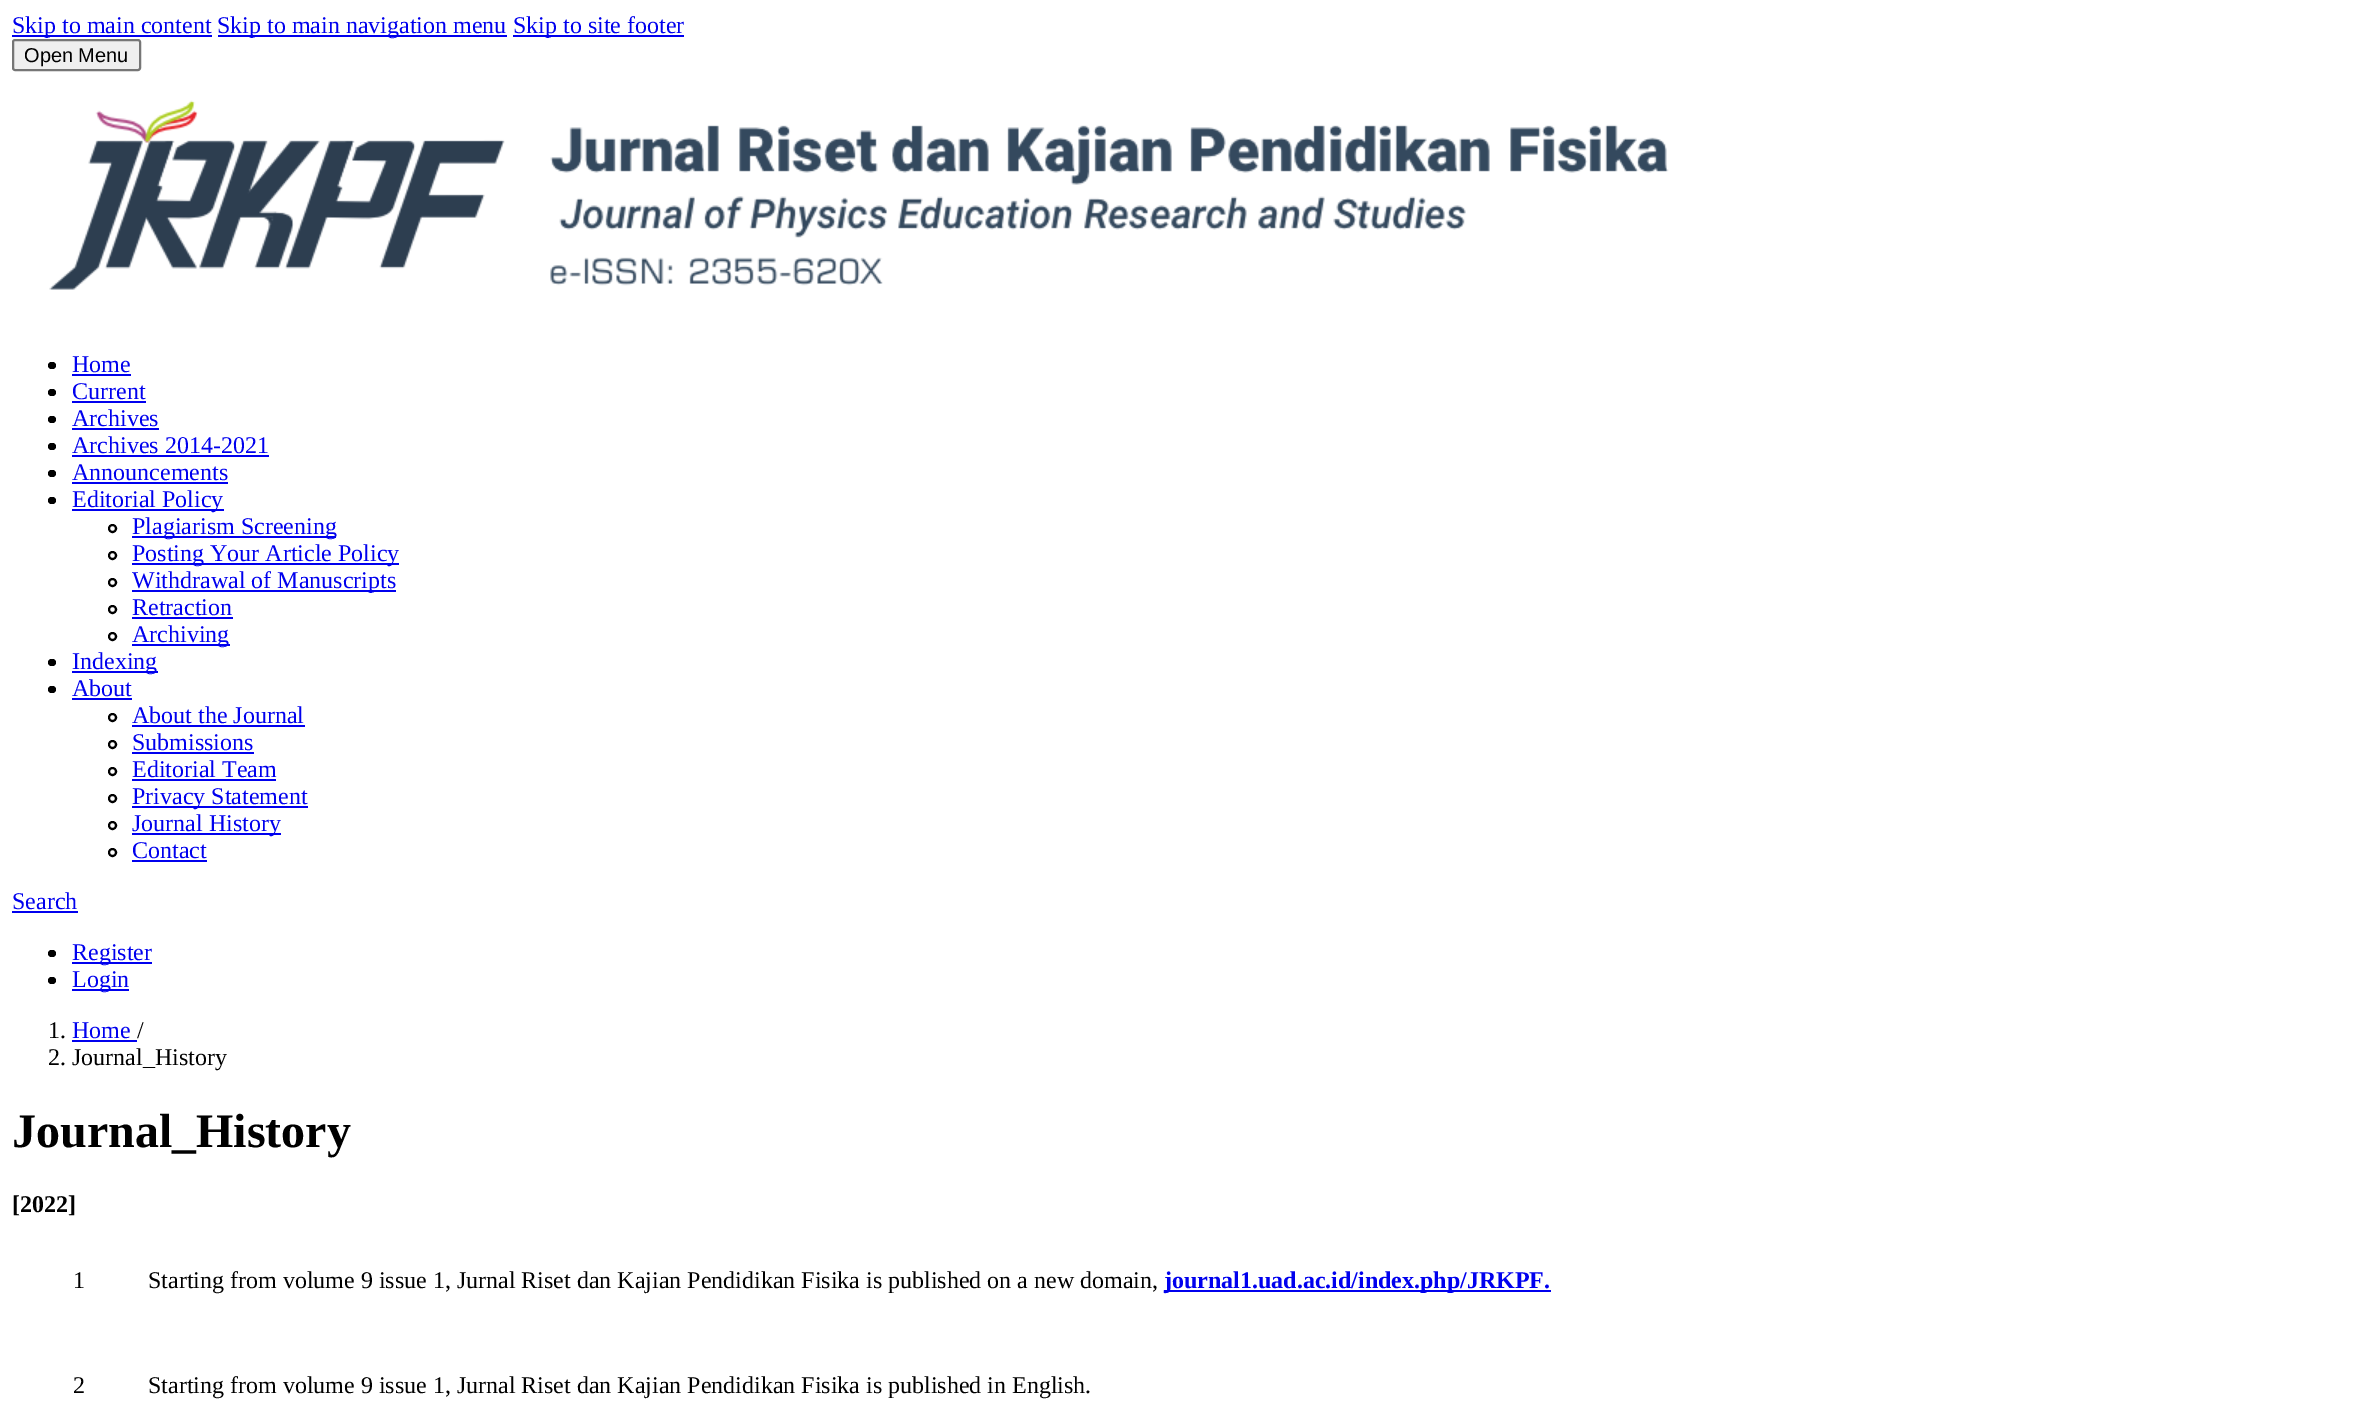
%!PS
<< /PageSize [2368 1404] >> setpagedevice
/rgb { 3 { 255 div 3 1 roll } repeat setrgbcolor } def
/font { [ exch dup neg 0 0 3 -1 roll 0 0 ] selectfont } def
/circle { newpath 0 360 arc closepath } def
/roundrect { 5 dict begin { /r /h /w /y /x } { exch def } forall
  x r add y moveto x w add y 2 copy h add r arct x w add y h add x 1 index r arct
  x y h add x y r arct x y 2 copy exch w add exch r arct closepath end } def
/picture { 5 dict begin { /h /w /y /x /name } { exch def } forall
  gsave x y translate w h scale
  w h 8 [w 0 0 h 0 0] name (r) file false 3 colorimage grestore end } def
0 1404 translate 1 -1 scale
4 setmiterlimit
255 255 255 rgb
0 0 2368 1404 rectfill
[
  [12 35 200 2 0 0 238]
  [218 35 289 2 0 0 238]
  [513 35 171 2 0 0 238]
] { aload pop rgb rectfill } forall
239 239 239 rgb
13 40 127 30 2 roundrect gsave fill grestore
118 118 118 rgb
2 setlinewidth
stroke
(img/1.rgb) 49 100 1620 190 picture
0 0 0 rgb
48 362 8 7 3.5 roundrect fill
0 0 238 rgb
72 374 59 2 rectfill
0 0 0 rgb
48 389 8 7 3.5 roundrect fill
0 0 238 rgb
72 401 74 2 rectfill
0 0 0 rgb
48 416 8 7 3.5 roundrect fill
0 0 238 rgb
72 428 87 2 rectfill
0 0 0 rgb
48 443 8 7 3.5 roundrect fill
0 0 238 rgb
72 455 197 2 rectfill
0 0 0 rgb
48 470 8 7 3.5 roundrect fill
0 0 238 rgb
72 482 156 2 rectfill
0 0 0 rgb
48 497 8 7 3.5 roundrect fill
0 0 238 rgb
72 509 152 2 rectfill
0 0 0 rgb
112.5 528.5 3.5 circle stroke
0 0 238 rgb
132 536 204 2 rectfill
0 0 0 rgb
112.5 555.5 3.5 circle stroke
0 0 238 rgb
132 563 267 2 rectfill
0 0 0 rgb
112.5 582.5 3.5 circle stroke
0 0 238 rgb
132 590 264 2 rectfill
0 0 0 rgb
112.5 609.5 3.5 circle stroke
0 0 238 rgb
132 617 101 2 rectfill
0 0 0 rgb
112.5 636.5 3.5 circle stroke
0 0 238 rgb
132 644 98 2 rectfill
0 0 0 rgb
48 659 8 7 3.5 roundrect fill
0 0 238 rgb
72 671 86 2 rectfill
0 0 0 rgb
48 686 8 7 3.5 roundrect fill
0 0 238 rgb
72 698 60 2 rectfill
0 0 0 rgb
112.5 717.5 3.5 circle stroke
0 0 238 rgb
132 725 173 2 rectfill
0 0 0 rgb
112.5 744.5 3.5 circle stroke
0 0 238 rgb
132 752 122 2 rectfill
0 0 0 rgb
112.5 771.5 3.5 circle stroke
0 0 238 rgb
132 779 144 2 rectfill
0 0 0 rgb
112.5 798.5 3.5 circle stroke
0 0 238 rgb
132 806 176 2 rectfill
0 0 0 rgb
112.5 825.5 3.5 circle stroke
0 0 238 rgb
132 833 149 2 rectfill
0 0 0 rgb
112.5 852.5 3.5 circle stroke
0 0 238 rgb
132 860 75 2 rectfill
12 911 66 2 rectfill
0 0 0 rgb
48 950 8 7 3.5 roundrect fill
0 0 238 rgb
72 962 80 2 rectfill
0 0 0 rgb
48 977 8 7 3.5 roundrect fill
[
  [72 989 57 2 0 0 238]
  [72 1040 65 2 0 0 238]
  [1164 1290 387 2 0 0 238]
] { aload pop rgb rectfill } forall
/LiberationSerif-Regular 24 font
[
  [(Skip to main content) 12 33]
  [(Skip to main navigation menu) 217 33]
  [(Skip to site footer) 513 33]
] { aload pop moveto show } forall
/LiberationSans-Regular 20 font
0 0 0 rgb
24 62 moveto (Open Menu) show
/LiberationSerif-Regular 24 font
0 0 238 rgb
[
  [(Home) 72 372]
  [(Current) 72 399]
  [(Archives) 72 426]
  [(Archives 2014-2021) 72 453]
  [(Announcements) 72 480]
  [(Editorial Policy) 72 507]
  [(Plagiarism Screening) 132 534]
  [(Posting Your Article Policy) 132 561]
  [(Withdrawal of Manuscripts) 132 588]
  [(Retraction) 132 615]
  [(Archiving) 132 642]
  [(Indexing) 72 669]
  [(About) 72 696]
  [(About the Journal) 132 723]
  [(Submissions) 132 750]
  [(Editorial Team) 132 777]
  [(Privacy Statement) 132 804]
  [(Journal History) 132 831]
  [(Contact) 132 858]
  [(Search) 12 909]
  [(Register) 72 960]
  [(Login) 72 987]
] { aload pop moveto show } forall
0 0 0 rgb
48 1038 moveto (1.) show
0 0 238 rgb
72 1038 moveto (Home) show
0 0 0 rgb
137 1038 moveto (/) show
48 1065 moveto (2. Journal_History) show
/LiberationSerif-Bold 48 font
12 1147 moveto (Journal_History) show
/LiberationSerif-Bold 24 font
12 1212 moveto ([2022]) show
/LiberationSerif-Regular 24 font
73 1288 moveto (1) show
148 1288 moveto (Starting from volume 9 issue 1, Jurnal Riset dan Kajian Pendidikan Fisika is published on a new domain,) show
/LiberationSerif-Bold 24 font
0 0 238 rgb
1164 1288 moveto (journal1.uad.ac.id/index.php/JRKPF.) show
/LiberationSerif-Regular 24 font
0 0 0 rgb
73 1393 moveto (2) show
148 1393 moveto (Starting from volume 9 issue 1, Jurnal Riset dan Kajian Pendidikan Fisika is published in English.) show
showpage
